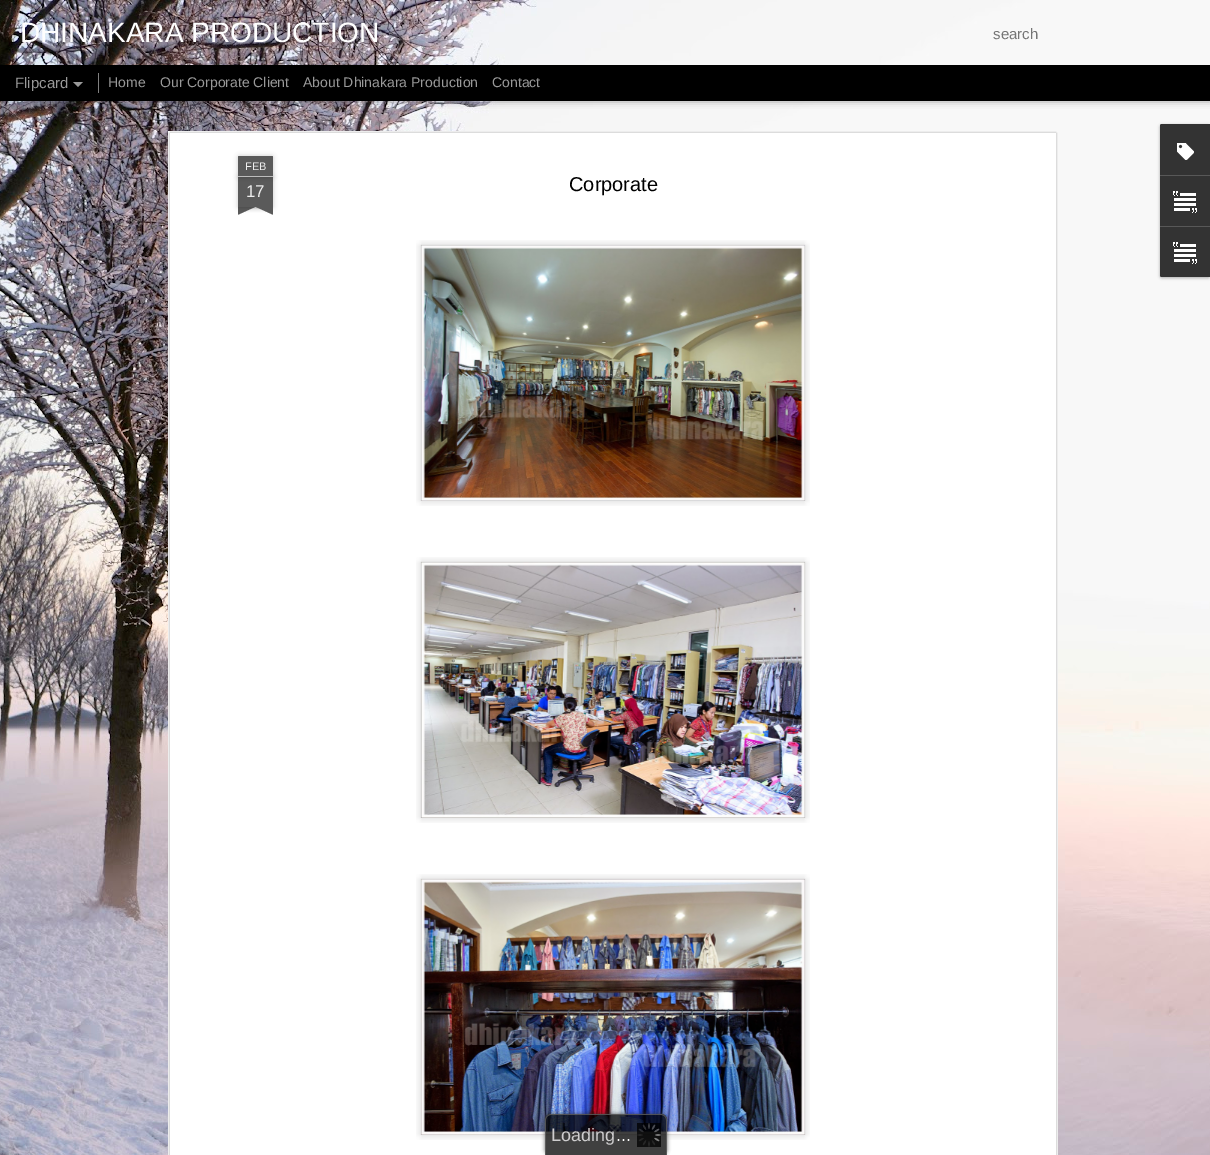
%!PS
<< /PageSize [1210 1155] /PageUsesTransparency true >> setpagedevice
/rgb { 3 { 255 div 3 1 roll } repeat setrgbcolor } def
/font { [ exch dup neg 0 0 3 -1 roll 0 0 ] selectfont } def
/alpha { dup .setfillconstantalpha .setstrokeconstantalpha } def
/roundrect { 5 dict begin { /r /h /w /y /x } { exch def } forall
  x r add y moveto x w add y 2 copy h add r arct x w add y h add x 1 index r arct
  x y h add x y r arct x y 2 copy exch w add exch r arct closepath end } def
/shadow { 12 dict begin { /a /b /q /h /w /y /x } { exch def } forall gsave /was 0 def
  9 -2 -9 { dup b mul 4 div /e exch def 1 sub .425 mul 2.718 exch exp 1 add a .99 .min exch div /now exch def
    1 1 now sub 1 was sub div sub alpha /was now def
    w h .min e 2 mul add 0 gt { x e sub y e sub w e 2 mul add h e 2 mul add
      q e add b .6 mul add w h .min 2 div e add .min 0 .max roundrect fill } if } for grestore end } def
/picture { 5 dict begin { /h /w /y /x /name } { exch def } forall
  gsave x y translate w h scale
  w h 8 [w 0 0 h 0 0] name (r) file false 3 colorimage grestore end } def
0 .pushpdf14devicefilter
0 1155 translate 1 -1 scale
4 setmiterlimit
0 0 0 rgb
0 0 1210 1155 rectfill
(img/2.rgb) 0 101 1210 1054 picture
0 65 1210 35 0 4 0.5 shadow
(img/1.rgb) 0 0 1210 65 picture
153 153 153 rgb
73 82 moveto 83 82 lineto 78 87 lineto closepath fill
128 128 128 rgb
98 73 1 20 rectfill
255 255 255 rgb
168 131 890 1024 rectfill
(img/3.rgb) 168 131 890 1024 picture
0 0 0 rgb
238 177 35 30 0 2.5 0.2 shadow
90 90 90 rgb
238 177 35 30 rectfill
0 0 0 rgb
238 156 35 21 1 2.5 0.2 shadow
90 90 90 rgb
239 156 moveto 272 156 lineto 272.5 156 273 156.5 273 157 curveto 273 177 lineto 238 177 lineto 238 157 lineto 238 156.5 238.5 156 239 156 curveto closepath fill
189 189 189 rgb
238 176 35 1 rectfill
gsave
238 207 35 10 rectclip
0 0 0 rgb
229 197 50 10 0 2.5 0.2 shadow
grestore
gsave
238 207 35 10 rectclip
90 90 90 rgb
229 208 moveto 275 187 lineto 279 196 lineto 233 217 lineto closepath fill
grestore
gsave
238 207 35 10 rectclip
0 0 0 rgb
232 197 50 10 0 2.5 0.2 shadow
grestore
gsave
238 207 35 10 rectclip
90 90 90 rgb
236 187 moveto 282 208 lineto 278 217 lineto 232 196 lineto closepath fill
grestore
(img/4.rgb) 416 240 394 266 picture
(img/5.rgb) 420 244 386 257 picture
(img/6.rgb) 416 557 394 266 picture
(img/7.rgb) 420 561 386 257 picture
(img/8.rgb) 416 874 394 266 picture
(img/9.rgb) 420 878 386 257 picture
0 0 0 rgb
1160 125 50 153 2 1.5 0.3 shadow
51 51 51 rgb
1162 124 moveto 1210 124 lineto 1210 277 lineto 1162 277 lineto 1161 277 1160 276 1160 275 curveto 1160 126 lineto 1160 125 1161 124 1162 124 curveto closepath fill
1162 124 moveto 1210 124 lineto 1210 175 lineto 1160 175 lineto 1160 126 lineto 1160 125 1161 124 1162 124 curveto closepath fill
(img/10.rgb) 1177 143 17 17 picture
88 88 88 rgb
1160 175 50 1 rectfill
(img/11.rgb) 1173 191 24 22 picture
51 51 51 rgb
1160 226 moveto 1210 226 lineto 1210 277 lineto 1162 277 lineto 1161 277 1160 276 1160 275 curveto closepath fill
88 88 88 rgb
1160 226 50 1 rectfill
(img/11.rgb) 1173 242 24 22 picture
gsave
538 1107 moveto 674 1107 lineto 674 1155 lineto 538 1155 lineto closepath 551 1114 moveto 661 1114 lineto 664.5 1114 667 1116.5 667 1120 curveto 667 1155 lineto 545 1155 lineto 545 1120 lineto 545 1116.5 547.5 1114 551 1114 curveto closepath eoclip newpath
51 51 51 rgb
545 1114 122 41 6 2 0.75 shadow
grestore
0.75 alpha
0 0 0 rgb
551 1114 moveto 661 1114 lineto 664.5 1114 667 1116.5 667 1120 curveto 667 1155 lineto 545 1155 lineto 545 1120 lineto 545 1116.5 547.5 1114 551 1114 curveto closepath fill
102 102 102 rgb
551 1114 moveto 661 1114 lineto 664 1114 667 1117 667 1120 curveto 667 1155 lineto 545 1155 lineto 545 1120 lineto 545 1117 548 1114 551 1114 curveto closepath 551 1115 moveto 661 1115 lineto 664 1115 666 1117 666 1120 curveto 666 1155 lineto 546 1155 lineto 546 1120 lineto 546 1117 548 1115 551 1115 curveto closepath eofill
1 alpha
(img/12.rgb) 637 1123 24 24 picture
/LiberationSans-Regular 28 font
254 254 254 rgb
20 42 moveto (DHINAKARA PRODUCTION) show
/LiberationSans-Regular 15 font
117 117 117 rgb
993 39 moveto (search) show
153 153 153 rgb
15 88 moveto (Flipcard) show
/LiberationSans-Regular 14 font
[
  [(Home) 108 87]
  [(Our Corporate Client) 160 87]
  [(About Dhinakara Production) 303 87]
  [(Contact) 492 87]
] { aload pop moveto show } forall
/LiberationSans-Regular 11 font
238 238 238 rgb
245 170 moveto (FEB) show
/LiberationSans-Regular 17 font
246 197 moveto (17) show
/LiberationSans-Regular 20 font
0 0 0 rgb
569 191 moveto (Corporate) show
/LiberationSans-Regular 18 font
206 205 206 rgb
551 1141 moveto (Loading) show
254 254 254 rgb
616 1141 moveto (...) show
.poppdf14devicefilter showpage
